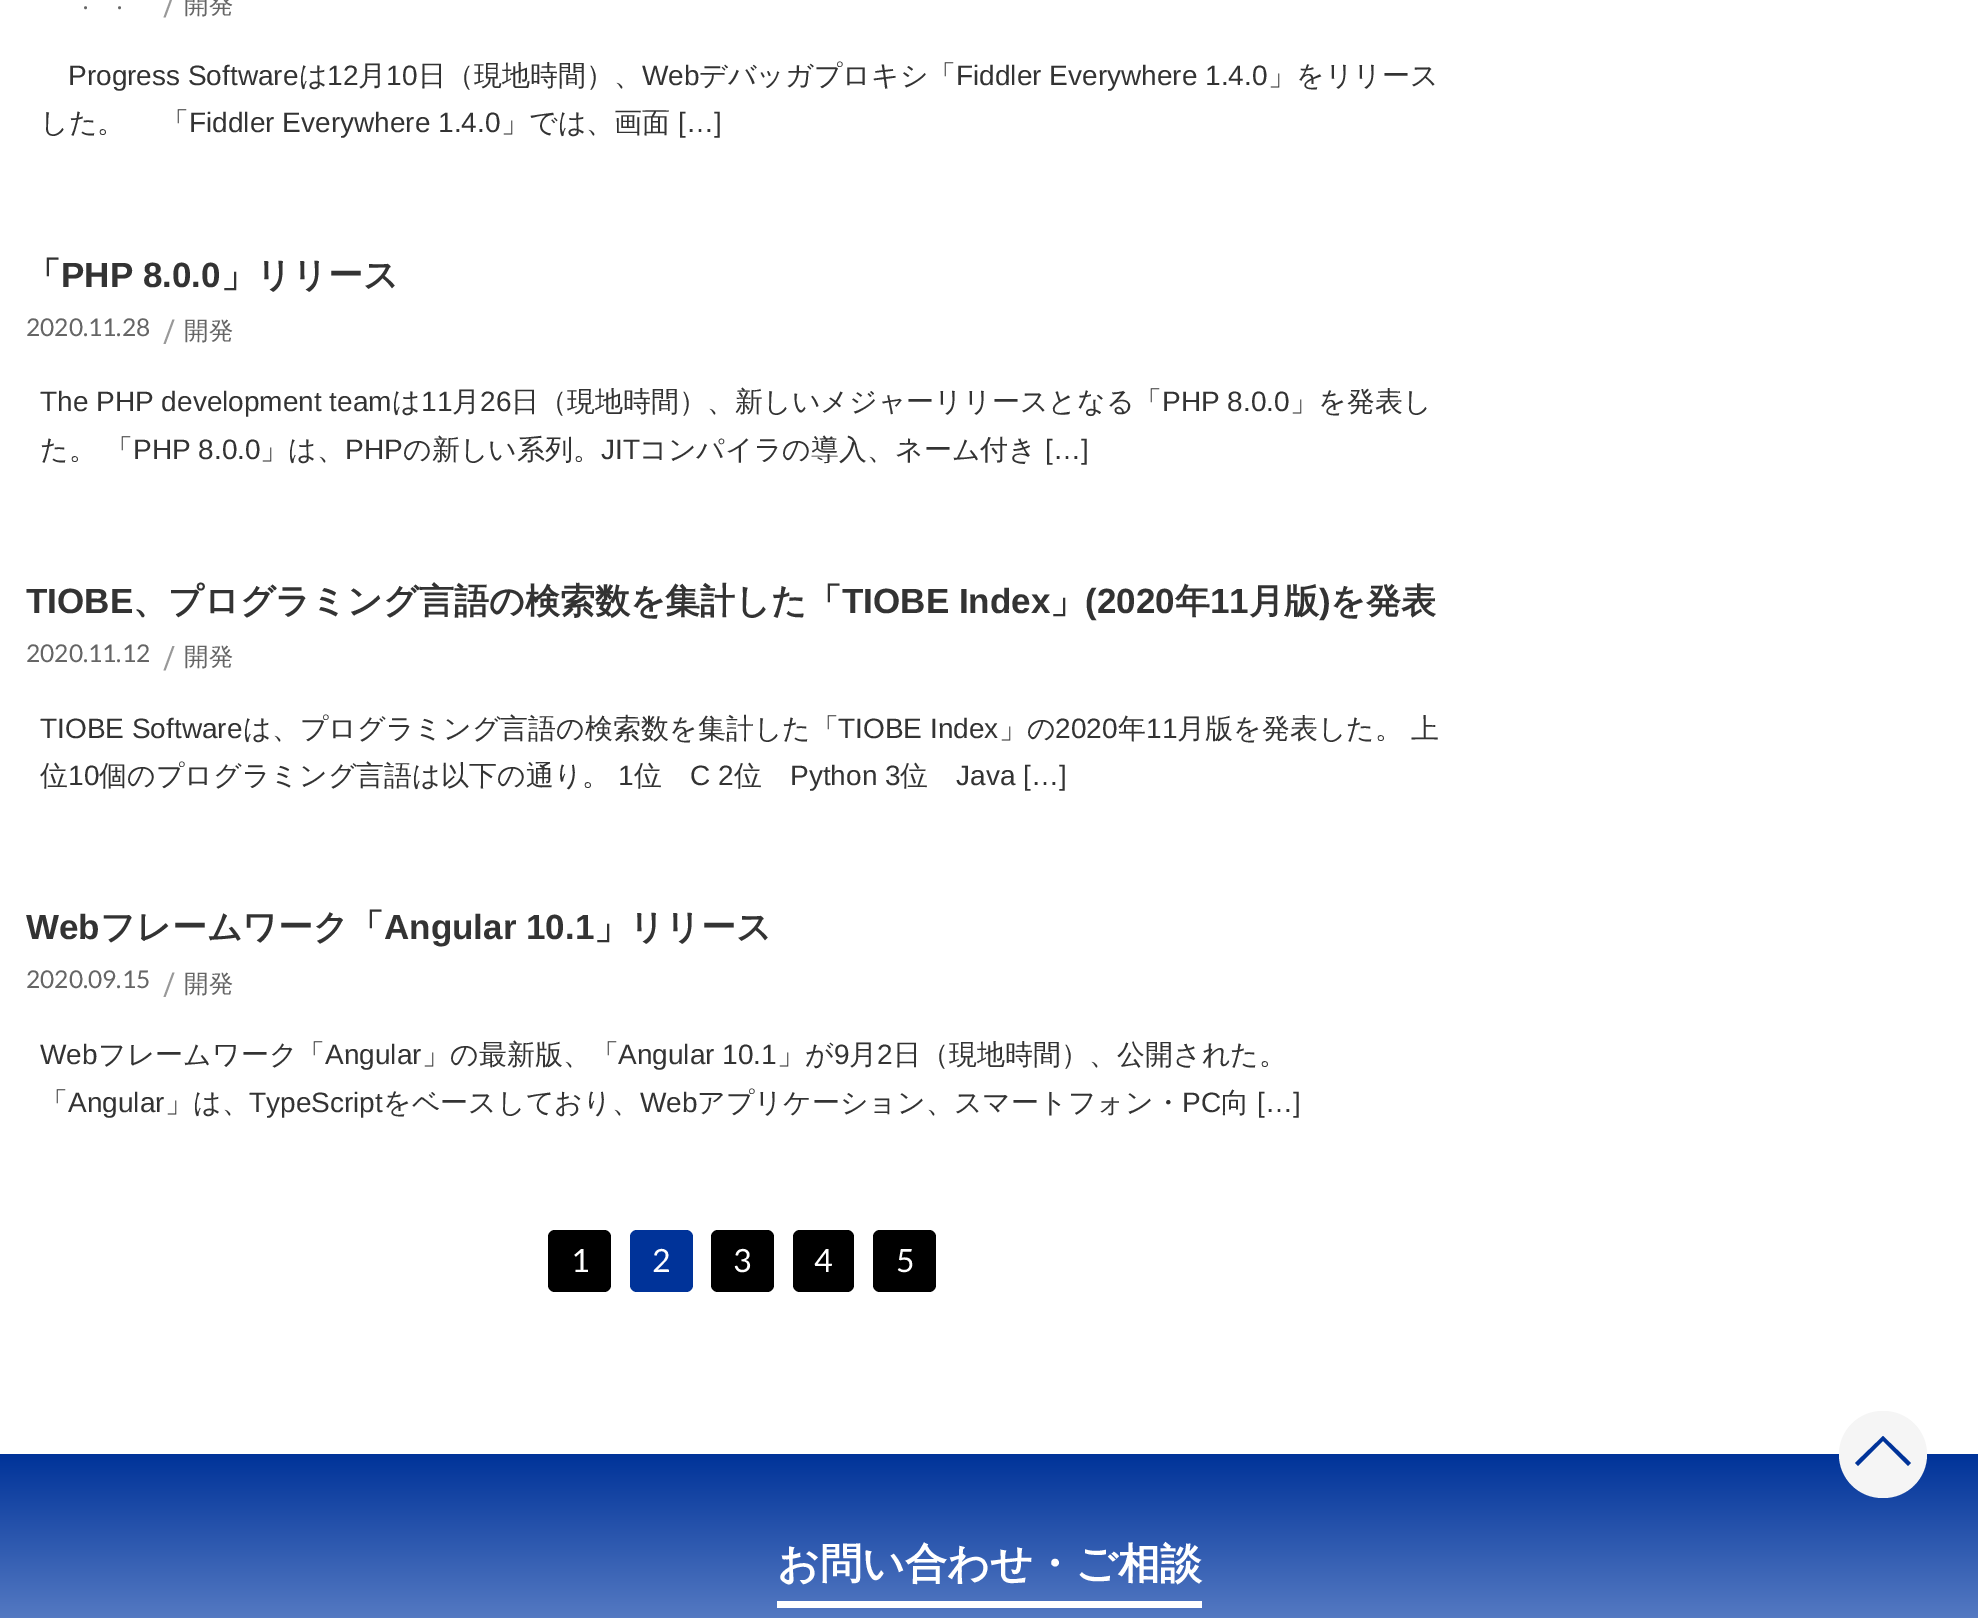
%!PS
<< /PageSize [1978 1618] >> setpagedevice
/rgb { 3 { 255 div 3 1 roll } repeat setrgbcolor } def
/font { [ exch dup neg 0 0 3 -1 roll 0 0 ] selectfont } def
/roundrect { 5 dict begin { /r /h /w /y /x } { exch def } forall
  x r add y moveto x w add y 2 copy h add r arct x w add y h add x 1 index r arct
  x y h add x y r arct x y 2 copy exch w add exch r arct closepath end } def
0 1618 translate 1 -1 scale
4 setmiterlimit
255 255 255 rgb
0 0 1978 1618 rectfill
153 153 153 rgb
172.5 -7 moveto 174.5 -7 lineto 165.5 17.5 lineto 163.5 17.5 lineto closepath fill
172.5 319.5 moveto 174.5 319.5 lineto 165.5 344 lineto 163.5 344 lineto closepath fill
172.5 646 moveto 174.5 646 lineto 165.5 670.5 lineto 163.5 670.5 lineto closepath fill
172.5 972.5 moveto 174.5 972.5 lineto 165.5 997 lineto 163.5 997 lineto closepath fill
0 0 0 rgb
548 1230 63 62 7 roundrect fill
0 51 153 rgb
630 1230 63 62 7 roundrect fill
0 0 0 rgb
711 1230 63 62 7 roundrect fill
793 1230 61 62 7 roundrect fill
873 1230 63 62 7 roundrect fill
gsave 0 1454 moveto 1978 1454 lineto 1978 1618 lineto 0 1618 lineto closepath clip newpath
<< /ShadingType 2 /ColorSpace /DeviceRGB /Coords [990 1454 990 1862] /Extend [true true] /Function << /FunctionType 2 /Domain [0 1] /C0 [0 0.2 0.6] /C1 [0.824 0.882 1] /N 1 >> >> shfill grestore
245 245 245 rgb
1839 1411 88 87 43.5 roundrect fill
0 51 153 rgb
1883 1436 moveto 1911 1463 lineto 1908 1466 lineto 1883 1441 lineto 1858 1466 lineto 1855 1463 lineto closepath fill
255 255 255 rgb
777 1601 425 7 rectfill
/Lato-Regular 24.5 font
101 101 101 rgb
83 9 moveto (.) show
117 9 moveto (.) show
/WenQuanYiZenHei-Medium 24.5 font
184 13 moveto (開発) show
/LiberationSans-Regular 28 font
51 51 51 rgb
68 85 moveto (Progress Software) show
/WenQuanYiZenHei-Medium 28 font
299 85 moveto (は) show
/LiberationSans-Regular 28 font
327 85 moveto (12) show
/WenQuanYiZenHei-Medium 28 font
358 85 moveto (月) show
/LiberationSans-Regular 28 font
386 85 moveto (10) show
/WenQuanYiZenHei-Medium 28 font
418 85 moveto (日（現地時間）、) show
/LiberationSans-Regular 28 font
642 85 moveto (Web) show
/WenQuanYiZenHei-Medium 28 font
699 85 moveto (デバッガプロキシ「) show
/LiberationSans-Regular 28 font
956 85 moveto (Fiddler Everywhere 1.4.0) show
/WenQuanYiZenHei-Medium 28 font
[
  [(」をリリース) 1268 85]
  [(した。) 40 132]
  [(「) 161 132]
] { aload pop moveto show } forall
/LiberationSans-Regular 28 font
189 132 moveto (Fiddler Everywhere 1.4.0) show
/WenQuanYiZenHei-Medium 28 font
501 132 moveto (」では、画面) show
/LiberationSans-Regular 28 font
678 132 moveto ([…]) show
/WenQuanYiZenHei-Bold 35 font
26 287 moveto (「) show
/LiberationSans-Bold 35 font
61 287 moveto (PHP 8.0.0) show
/WenQuanYiZenHei-Bold 35 font
221 287 moveto (」リリース) show
/Lato-Regular 24.5 font
101 101 101 rgb
26 336 moveto (2020.11.28) show
/WenQuanYiZenHei-Medium 24.5 font
184 339 moveto (開発) show
/LiberationSans-Regular 28 font
51 51 51 rgb
40 411 moveto (The PHP development team) show
/WenQuanYiZenHei-Medium 28 font
392 411 moveto (は) show
/LiberationSans-Regular 28 font
421 411 moveto (11) show
/WenQuanYiZenHei-Medium 28 font
452 411 moveto (月) show
/LiberationSans-Regular 28 font
480 411 moveto (26) show
/WenQuanYiZenHei-Medium 28 font
511 411 moveto (日（現地時間）、新しいメジャーリリースとなる「) show
/LiberationSans-Regular 28 font
1162 411 moveto (PHP 8.0.0) show
/WenQuanYiZenHei-Medium 28 font
[
  [(」を発表し) 1290 411]
  [(た。) 40 459]
  [(「) 105 459]
] { aload pop moveto show } forall
/LiberationSans-Regular 28 font
133 459 moveto (PHP 8.0.0) show
/WenQuanYiZenHei-Medium 28 font
260 459 moveto (」は、) show
/LiberationSans-Regular 28 font
345 459 moveto (PHP) show
/WenQuanYiZenHei-Medium 28 font
403 459 moveto (の新しい系列。) show
/LiberationSans-Regular 28 font
601 459 moveto (JIT) show
/WenQuanYiZenHei-Medium 28 font
639 459 moveto (コンパイラの導入、ネーム付き) show
/LiberationSans-Regular 28 font
1045 459 moveto ([…]) show
/LiberationSans-Bold 35 font
26 613 moveto (TIOBE) show
/WenQuanYiZenHei-Bold 35 font
133 613 moveto (、プログラミング言語の検索数を集計した「) show
/LiberationSans-Bold 35 font
842 613 moveto (TIOBE Index) show
/WenQuanYiZenHei-Bold 35 font
1050 613 moveto (」) show
/LiberationSans-Bold 35 font
1085 613 moveto (\(2020) show
/WenQuanYiZenHei-Bold 35 font
1175 613 moveto (年) show
/LiberationSans-Bold 35 font
1210 613 moveto (11) show
/WenQuanYiZenHei-Bold 35 font
1249 613 moveto (月版) show
/LiberationSans-Bold 35 font
1319 613 moveto (\)) show
/WenQuanYiZenHei-Bold 35 font
1330 613 moveto (を発表) show
/Lato-Regular 24.5 font
101 101 101 rgb
26 662 moveto (2020.11.12) show
/WenQuanYiZenHei-Medium 24.5 font
184 665 moveto (開発) show
/LiberationSans-Regular 28 font
51 51 51 rgb
40 738 moveto (TIOBE Software) show
/WenQuanYiZenHei-Medium 28 font
243 738 moveto (は、プログラミング言語の検索数を集計した「) show
/LiberationSans-Regular 28 font
838 738 moveto (TIOBE Index) show
/WenQuanYiZenHei-Medium 28 font
999 738 moveto (」の) show
/LiberationSans-Regular 28 font
1055 738 moveto (2020) show
/WenQuanYiZenHei-Medium 28 font
1118 738 moveto (年) show
/LiberationSans-Regular 28 font
1146 738 moveto (11) show
/WenQuanYiZenHei-Medium 28 font
[
  [(月版を発表した。) 1177 738]
  [(上) 1411 738]
  [(位) 40 785]
] { aload pop moveto show } forall
/LiberationSans-Regular 28 font
68 785 moveto (10) show
/WenQuanYiZenHei-Medium 28 font
99 785 moveto (個のプログラミング言語は以下の通り。) show
/LiberationSans-Regular 28 font
618 785 moveto (1) show
/WenQuanYiZenHei-Medium 28 font
634 785 moveto (位) show
/LiberationSans-Regular 28 font
690 785 moveto (C 2) show
/WenQuanYiZenHei-Medium 28 font
734 785 moveto (位) show
/LiberationSans-Regular 28 font
790 785 moveto (Python 3) show
/WenQuanYiZenHei-Medium 28 font
900 785 moveto (位) show
/LiberationSans-Regular 28 font
956 785 moveto (Java […]) show
/LiberationSans-Bold 35 font
26 939 moveto (Web) show
/WenQuanYiZenHei-Bold 35 font
100 939 moveto (フレームワーク「) show
/LiberationSans-Bold 35 font
384 939 moveto (Angular 10.1) show
/WenQuanYiZenHei-Bold 35 font
594 939 moveto (」リリース) show
/Lato-Regular 24.5 font
101 101 101 rgb
26 988 moveto (2020.09.15) show
/WenQuanYiZenHei-Medium 24.5 font
184 992 moveto (開発) show
/LiberationSans-Regular 28 font
51 51 51 rgb
40 1064 moveto (Web) show
/WenQuanYiZenHei-Medium 28 font
98 1064 moveto (フレームワーク「) show
/LiberationSans-Regular 28 font
325 1064 moveto (Angular) show
/WenQuanYiZenHei-Medium 28 font
422 1064 moveto (」の最新版、「) show
/LiberationSans-Regular 28 font
618 1064 moveto (Angular 10.1) show
/WenQuanYiZenHei-Medium 28 font
777 1064 moveto (」が) show
/LiberationSans-Regular 28 font
834 1064 moveto (9) show
/WenQuanYiZenHei-Medium 28 font
849 1064 moveto (月) show
/LiberationSans-Regular 28 font
877 1064 moveto (2) show
/WenQuanYiZenHei-Medium 28 font
893 1064 moveto (日（現地時間）、公開された。) show
40 1112 moveto (「) show
/LiberationSans-Regular 28 font
68 1112 moveto (Angular) show
/WenQuanYiZenHei-Medium 28 font
165 1112 moveto (」は、) show
/LiberationSans-Regular 28 font
249 1112 moveto (TypeScript) show
/WenQuanYiZenHei-Medium 28 font
383 1112 moveto (をベースしており、) show
/LiberationSans-Regular 28 font
640 1112 moveto (Web) show
/WenQuanYiZenHei-Medium 28 font
697 1112 moveto (アプリケーション、スマートフォン・) show
/LiberationSans-Regular 28 font
1182 1112 moveto (PC) show
/WenQuanYiZenHei-Medium 28 font
1221 1112 moveto (向) show
/LiberationSans-Regular 28 font
1257 1112 moveto ([…]) show
/Lato-Regular 32 font
255 255 255 rgb
[
  [(1) 571 1272]
  [(2) 652 1272]
  [(3) 733 1272]
  [(4) 814 1272]
  [(5) 896 1272]
] { aload pop moveto show } forall
/WenQuanYiZenHei-Bold 42 font
777 1578 moveto (お問い合わせ・ご相談) show
showpage
